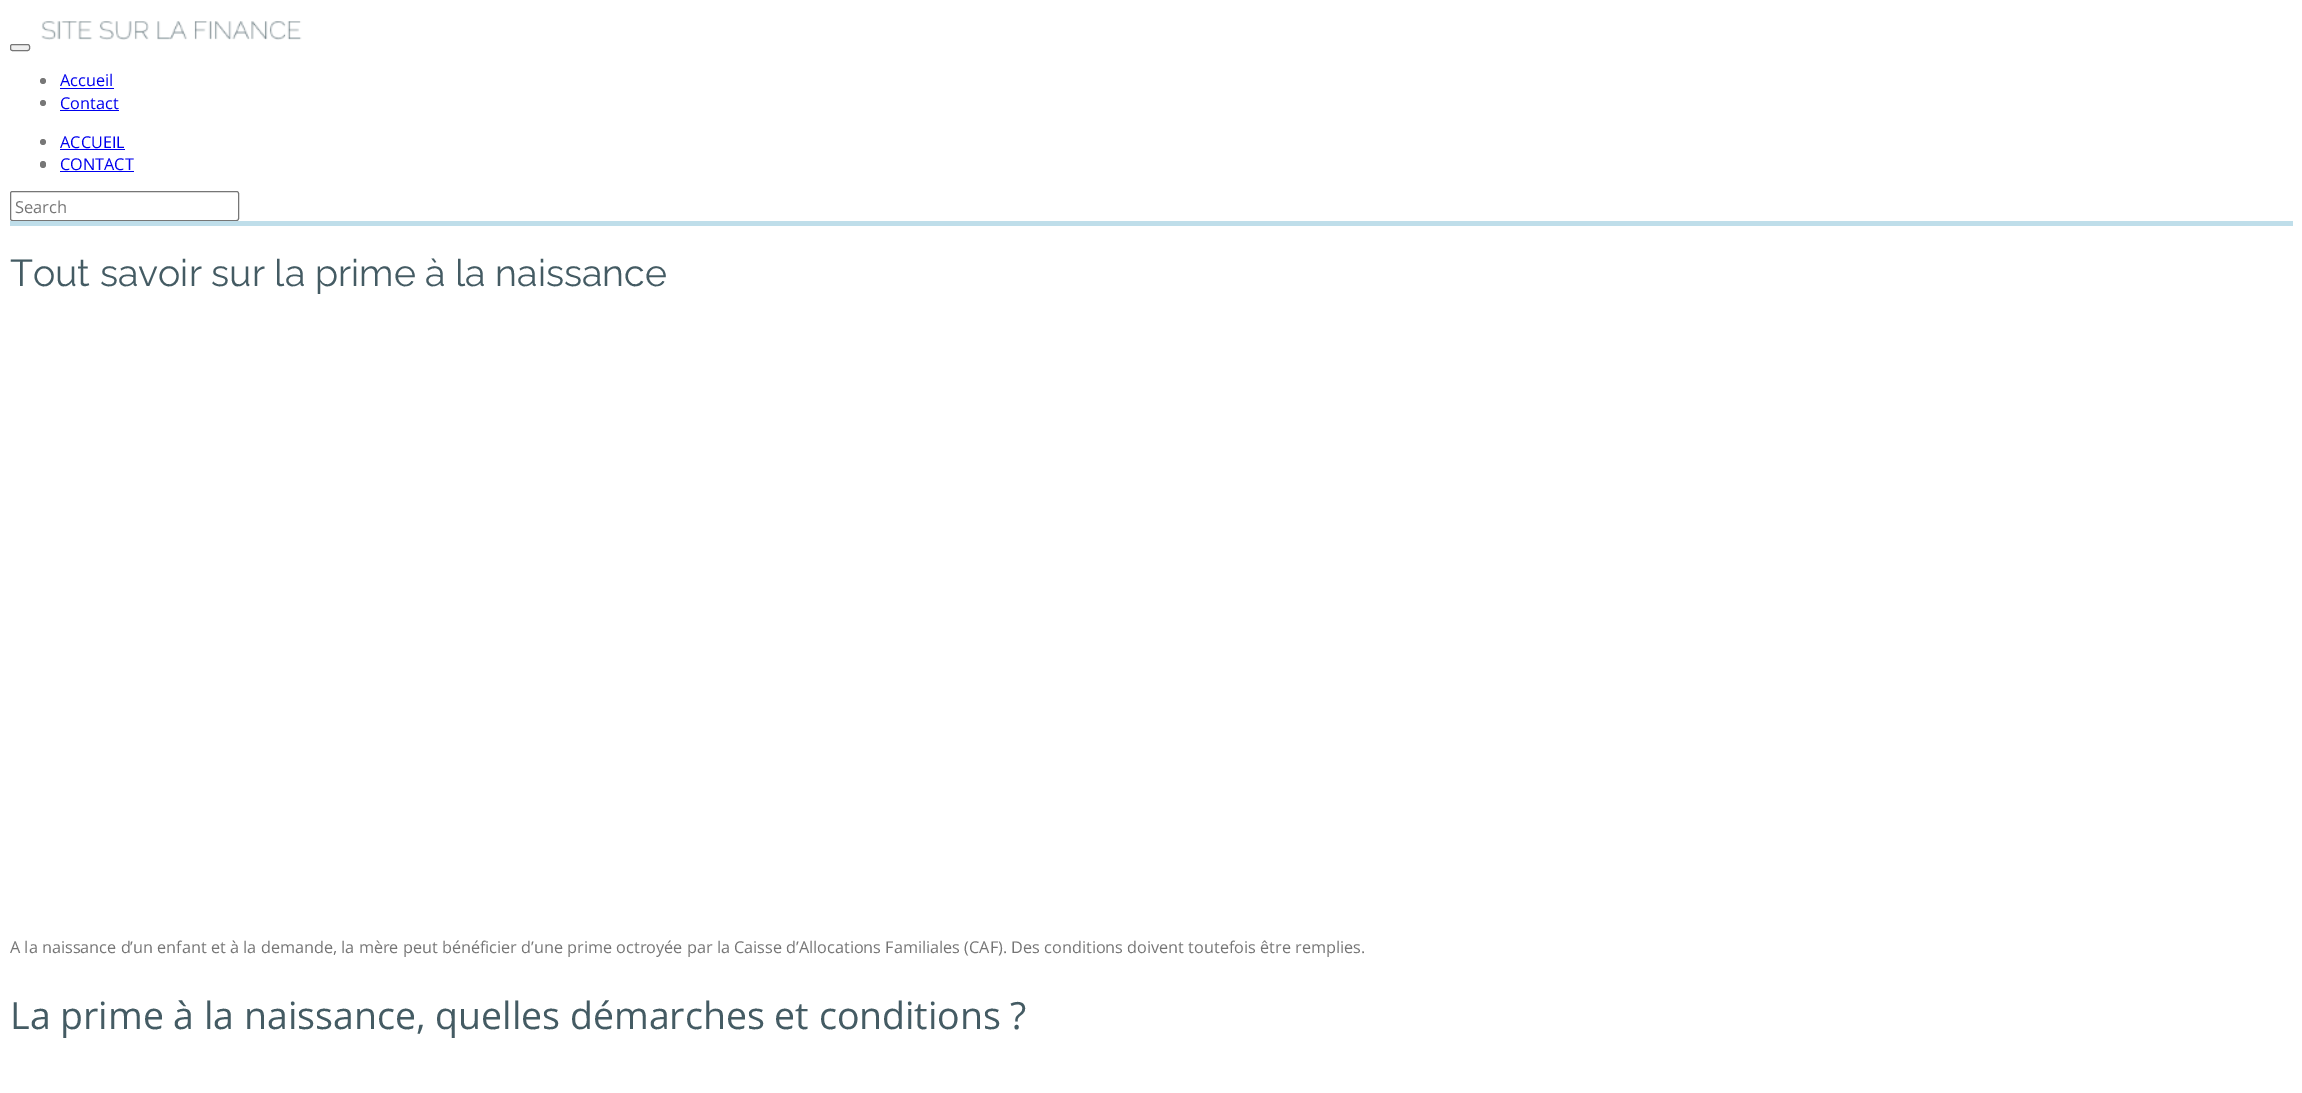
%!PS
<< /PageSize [2302 1093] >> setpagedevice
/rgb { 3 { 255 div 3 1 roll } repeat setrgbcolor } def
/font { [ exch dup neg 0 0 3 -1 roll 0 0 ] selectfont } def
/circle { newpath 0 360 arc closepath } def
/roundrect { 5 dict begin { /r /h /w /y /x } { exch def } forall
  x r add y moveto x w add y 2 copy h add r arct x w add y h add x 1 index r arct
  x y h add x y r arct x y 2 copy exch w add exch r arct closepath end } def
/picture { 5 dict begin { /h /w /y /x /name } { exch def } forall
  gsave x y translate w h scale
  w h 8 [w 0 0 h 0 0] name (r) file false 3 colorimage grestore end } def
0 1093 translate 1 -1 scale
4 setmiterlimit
255 255 255 rgb
0 0 2302 1093 rectfill
(img/1.rgb) 41 21 261 19 picture
239 239 239 rgb
10.5 44.5 19 6 2 roundrect gsave fill grestore
118 118 118 rgb
stroke
119 119 119 rgb
43 81 3 circle fill
0 0 238 rgb
60 88 54 1 rectfill
119 119 119 rgb
43 103 3 circle fill
0 0 238 rgb
60 110 59 1 rectfill
119 119 119 rgb
43 142 3 circle fill
0 0 238 rgb
60 149 65 1 rectfill
119 119 119 rgb
40 161 6 7 3 roundrect fill
0 0 238 rgb
60 171 74 1 rectfill
118 118 118 rgb
10.5 191.5 228 29 2 roundrect stroke
191 222 234 rgb
10 221 2283 5 rectfill
/OpenSans-Regular 16.25 font
0 0 238 rgb
[
  [(Accueil) 60 86]
  [(Contact) 60 109]
  [(ACCUEIL) 60 148]
  [(CONTACT) 60 170]
] { aload pop moveto show } forall
/OpenSans-Regular 16.5 font
117 117 117 rgb
15 213 moveto (Search) show
/Raleway-Regular 37.5 font
68 91 99 rgb
10 286 moveto (Tout savoir sur la prime à la naissance) show
/OpenSans-Regular 16.25 font
117 117 117 rgb
10 953 moveto (A la naissance d’un enfant et à la demande, la mère peut bénéficier d’une prime octroyée par la Caisse d’Allocations Familiales \(CAF\). Des conditions doivent toutefois être remplies.) show
/OpenSans-Regular 37.5 font
68 91 99 rgb
10 1029 moveto (La prime à la naissance, quelles démarches et conditions ?) show
showpage
